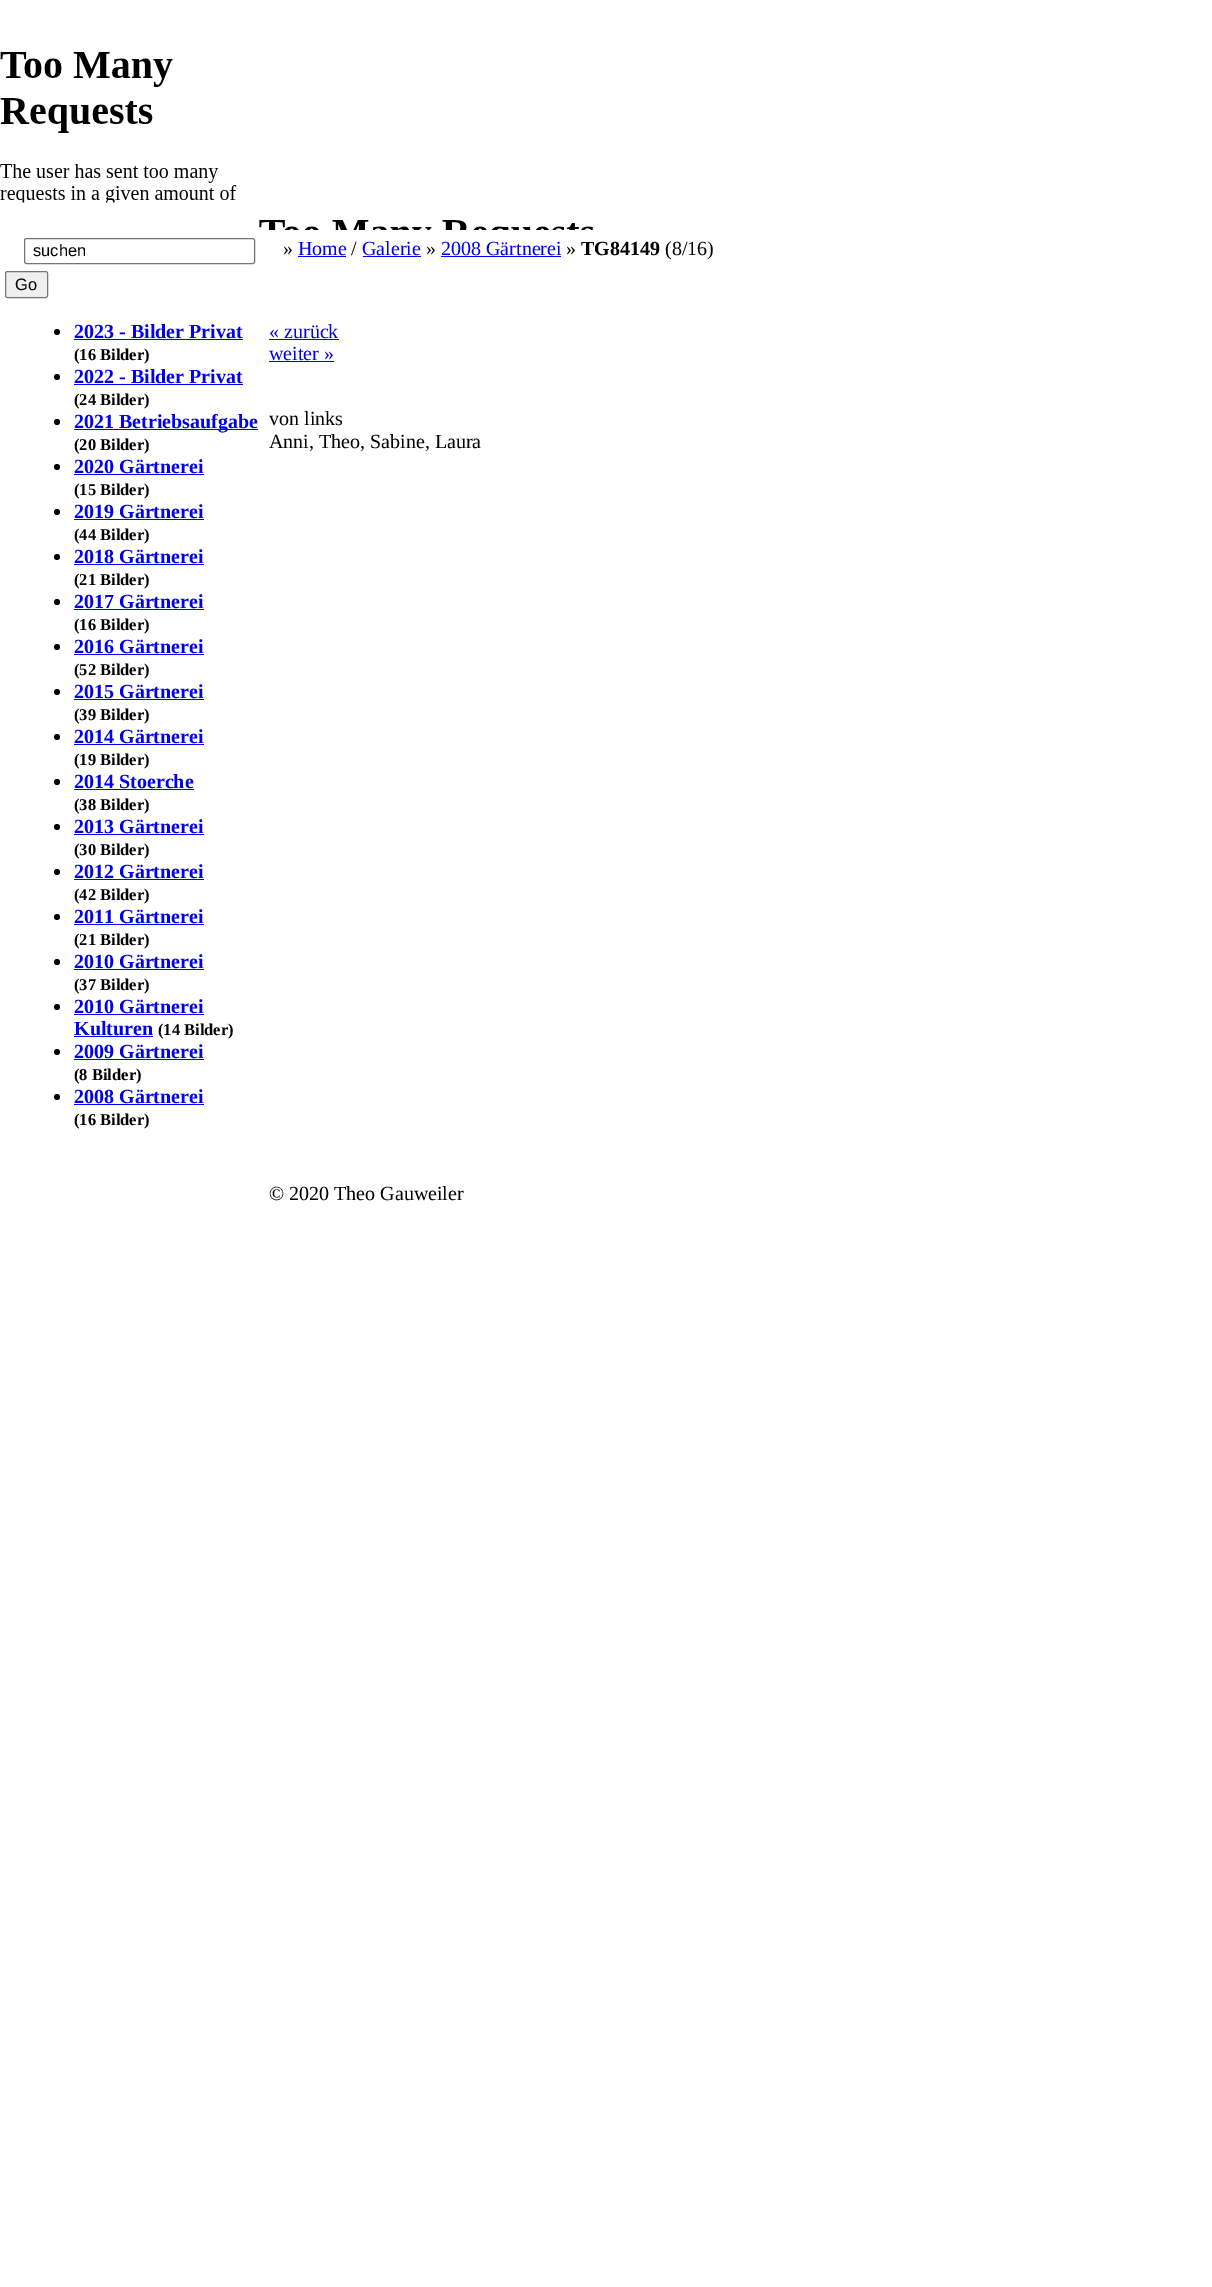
%!PS
<< /PageSize [1212 2287] >> setpagedevice
/rgb { 3 { 255 div 3 1 roll } repeat setrgbcolor } def
/font { [ exch dup neg 0 0 3 -1 roll 0 0 ] selectfont } def
/circle { newpath 0 360 arc closepath } def
/roundrect { 5 dict begin { /r /h /w /y /x } { exch def } forall
  x r add y moveto x w add y 2 copy h add r arct x w add y h add x 1 index r arct
  x y h add x y r arct x y 2 copy exch w add exch r arct closepath end } def
/picture { 5 dict begin { /h /w /y /x /name } { exch def } forall
  gsave x y translate w h scale
  w h 8 [w 0 0 h 0 0] name (r) file false 3 colorimage grestore end } def
0 2287 translate 1 -1 scale
4 setmiterlimit
255 255 255 rgb
0 0 1212 2287 rectfill
(img/1.rgb) 0 52 237 151 picture
(img/2.rgb) 259 220 334 10 picture
118 118 118 rgb
24.5 238.5 230 25 2 roundrect stroke
239 239 239 rgb
5.5 271.5 42 26 2 roundrect gsave fill grestore
118 118 118 rgb
stroke
[
  [298 256 48 1 0 0 238]
  [363 256 58 1 0 0 238]
  [441 256 120 1 0 0 238]
] { aload pop rgb rectfill } forall
0 0 0 rgb
57 332 3 circle fill
0 0 238 rgb
74 339 169 1 rectfill
0 0 0 rgb
57 377 3 circle fill
0 0 238 rgb
74 384 169 1 rectfill
0 0 0 rgb
57 422 3 circle fill
0 0 238 rgb
74 429 184 1 rectfill
0 0 0 rgb
57 467 3 circle fill
0 0 238 rgb
74 474 130 1 rectfill
0 0 0 rgb
57 512 3 circle fill
0 0 238 rgb
74 519 130 1 rectfill
0 0 0 rgb
57 557 3 circle fill
0 0 238 rgb
74 564 130 1 rectfill
0 0 0 rgb
57 602 3 circle fill
0 0 238 rgb
74 609 130 1 rectfill
0 0 0 rgb
57 647 3 circle fill
0 0 238 rgb
74 654 130 1 rectfill
0 0 0 rgb
57 692 3 circle fill
0 0 238 rgb
74 699 130 1 rectfill
0 0 0 rgb
57 737 3 circle fill
0 0 238 rgb
74 744 130 1 rectfill
0 0 0 rgb
57 782 3 circle fill
0 0 238 rgb
74 789 120 1 rectfill
0 0 0 rgb
57 827 3 circle fill
0 0 238 rgb
74 834 130 1 rectfill
0 0 0 rgb
57 872 3 circle fill
0 0 238 rgb
74 879 130 1 rectfill
0 0 0 rgb
57 917 3 circle fill
0 0 238 rgb
74 924 130 1 rectfill
0 0 0 rgb
57 962 3 circle fill
0 0 238 rgb
74 969 130 1 rectfill
0 0 0 rgb
57 1007 3 circle fill
0 0 238 rgb
74 1014 130 1 rectfill
74 1036 79 1 rectfill
0 0 0 rgb
57 1052 3 circle fill
0 0 238 rgb
74 1059 130 1 rectfill
0 0 0 rgb
57 1097 3 circle fill
[
  [74 1104 130 1 0 0 238]
  [269 339 70 1 0 0 238]
  [269 361 65 1 0 0 238]
] { aload pop rgb rectfill } forall
/LiberationSans-Regular 16.5 font
0 0 0 rgb
33 256 moveto (suchen) show
15 290 moveto (Go) show
/LiberationSerif-Regular 20 font
283 255 moveto (») show
0 0 238 rgb
298 255 moveto (Home) show
0 0 0 rgb
351 255 moveto (/) show
0 0 238 rgb
362 255 moveto (Galerie) show
0 0 0 rgb
426 255 moveto (») show
0 0 238 rgb
441 255 moveto (2008 Gärtnerei) show
0 0 0 rgb
566 255 moveto (») show
/LiberationSerif-Bold 20 font
581 255 moveto (TG84149) show
/LiberationSerif-Regular 20 font
665 255 moveto (\(8/16\)) show
/LiberationSerif-Bold 20 font
0 0 238 rgb
74 338 moveto (2023 - Bilder Privat) show
/LiberationSerif-Bold 16.5 font
0 0 0 rgb
74 360 moveto (\(16 Bilder\)) show
/LiberationSerif-Bold 20 font
0 0 238 rgb
74 383 moveto (2022 - Bilder Privat) show
/LiberationSerif-Bold 16.5 font
0 0 0 rgb
74 405 moveto (\(24 Bilder\)) show
/LiberationSerif-Bold 20 font
0 0 238 rgb
74 428 moveto (2021 Betriebsaufgabe) show
/LiberationSerif-Bold 16.5 font
0 0 0 rgb
74 450 moveto (\(20 Bilder\)) show
/LiberationSerif-Bold 20 font
0 0 238 rgb
74 473 moveto (2020 Gärtnerei) show
/LiberationSerif-Bold 16.5 font
0 0 0 rgb
74 495 moveto (\(15 Bilder\)) show
/LiberationSerif-Bold 20 font
0 0 238 rgb
74 518 moveto (2019 Gärtnerei) show
/LiberationSerif-Bold 16.5 font
0 0 0 rgb
74 540 moveto (\(44 Bilder\)) show
/LiberationSerif-Bold 20 font
0 0 238 rgb
74 563 moveto (2018 Gärtnerei) show
/LiberationSerif-Bold 16.5 font
0 0 0 rgb
74 585 moveto (\(21 Bilder\)) show
/LiberationSerif-Bold 20 font
0 0 238 rgb
74 608 moveto (2017 Gärtnerei) show
/LiberationSerif-Bold 16.5 font
0 0 0 rgb
74 630 moveto (\(16 Bilder\)) show
/LiberationSerif-Bold 20 font
0 0 238 rgb
74 653 moveto (2016 Gärtnerei) show
/LiberationSerif-Bold 16.5 font
0 0 0 rgb
74 675 moveto (\(52 Bilder\)) show
/LiberationSerif-Bold 20 font
0 0 238 rgb
74 698 moveto (2015 Gärtnerei) show
/LiberationSerif-Bold 16.5 font
0 0 0 rgb
74 720 moveto (\(39 Bilder\)) show
/LiberationSerif-Bold 20 font
0 0 238 rgb
74 743 moveto (2014 Gärtnerei) show
/LiberationSerif-Bold 16.5 font
0 0 0 rgb
74 765 moveto (\(19 Bilder\)) show
/LiberationSerif-Bold 20 font
0 0 238 rgb
74 788 moveto (2014 Stoerche) show
/LiberationSerif-Bold 16.5 font
0 0 0 rgb
74 810 moveto (\(38 Bilder\)) show
/LiberationSerif-Bold 20 font
0 0 238 rgb
74 833 moveto (2013 Gärtnerei) show
/LiberationSerif-Bold 16.5 font
0 0 0 rgb
74 855 moveto (\(30 Bilder\)) show
/LiberationSerif-Bold 20 font
0 0 238 rgb
74 878 moveto (2012 Gärtnerei) show
/LiberationSerif-Bold 16.5 font
0 0 0 rgb
74 900 moveto (\(42 Bilder\)) show
/LiberationSerif-Bold 20 font
0 0 238 rgb
74 923 moveto (2011 Gärtnerei) show
/LiberationSerif-Bold 16.5 font
0 0 0 rgb
74 945 moveto (\(21 Bilder\)) show
/LiberationSerif-Bold 20 font
0 0 238 rgb
74 968 moveto (2010 Gärtnerei) show
/LiberationSerif-Bold 16.5 font
0 0 0 rgb
74 990 moveto (\(37 Bilder\)) show
/LiberationSerif-Bold 20 font
0 0 238 rgb
74 1013 moveto (2010 Gärtnerei) show
74 1035 moveto (Kulturen) show
/LiberationSerif-Bold 16.5 font
0 0 0 rgb
158 1035 moveto (\(14 Bilder\)) show
/LiberationSerif-Bold 20 font
0 0 238 rgb
74 1058 moveto (2009 Gärtnerei) show
/LiberationSerif-Bold 16.5 font
0 0 0 rgb
74 1080 moveto (\(8 Bilder\)) show
/LiberationSerif-Bold 20 font
0 0 238 rgb
74 1103 moveto (2008 Gärtnerei) show
/LiberationSerif-Bold 16.5 font
0 0 0 rgb
74 1125 moveto (\(16 Bilder\)) show
/LiberationSerif-Regular 20 font
0 0 238 rgb
269 338 moveto (« zurück) show
269 360 moveto (weiter ») show
0 0 0 rgb
[
  [(von links) 269 425]
  [(Anni, Theo, Sabine, Laura) 269 448]
  [(© 2020 Theo Gauweiler) 269 1200]
] { aload pop moveto show } forall
showpage
